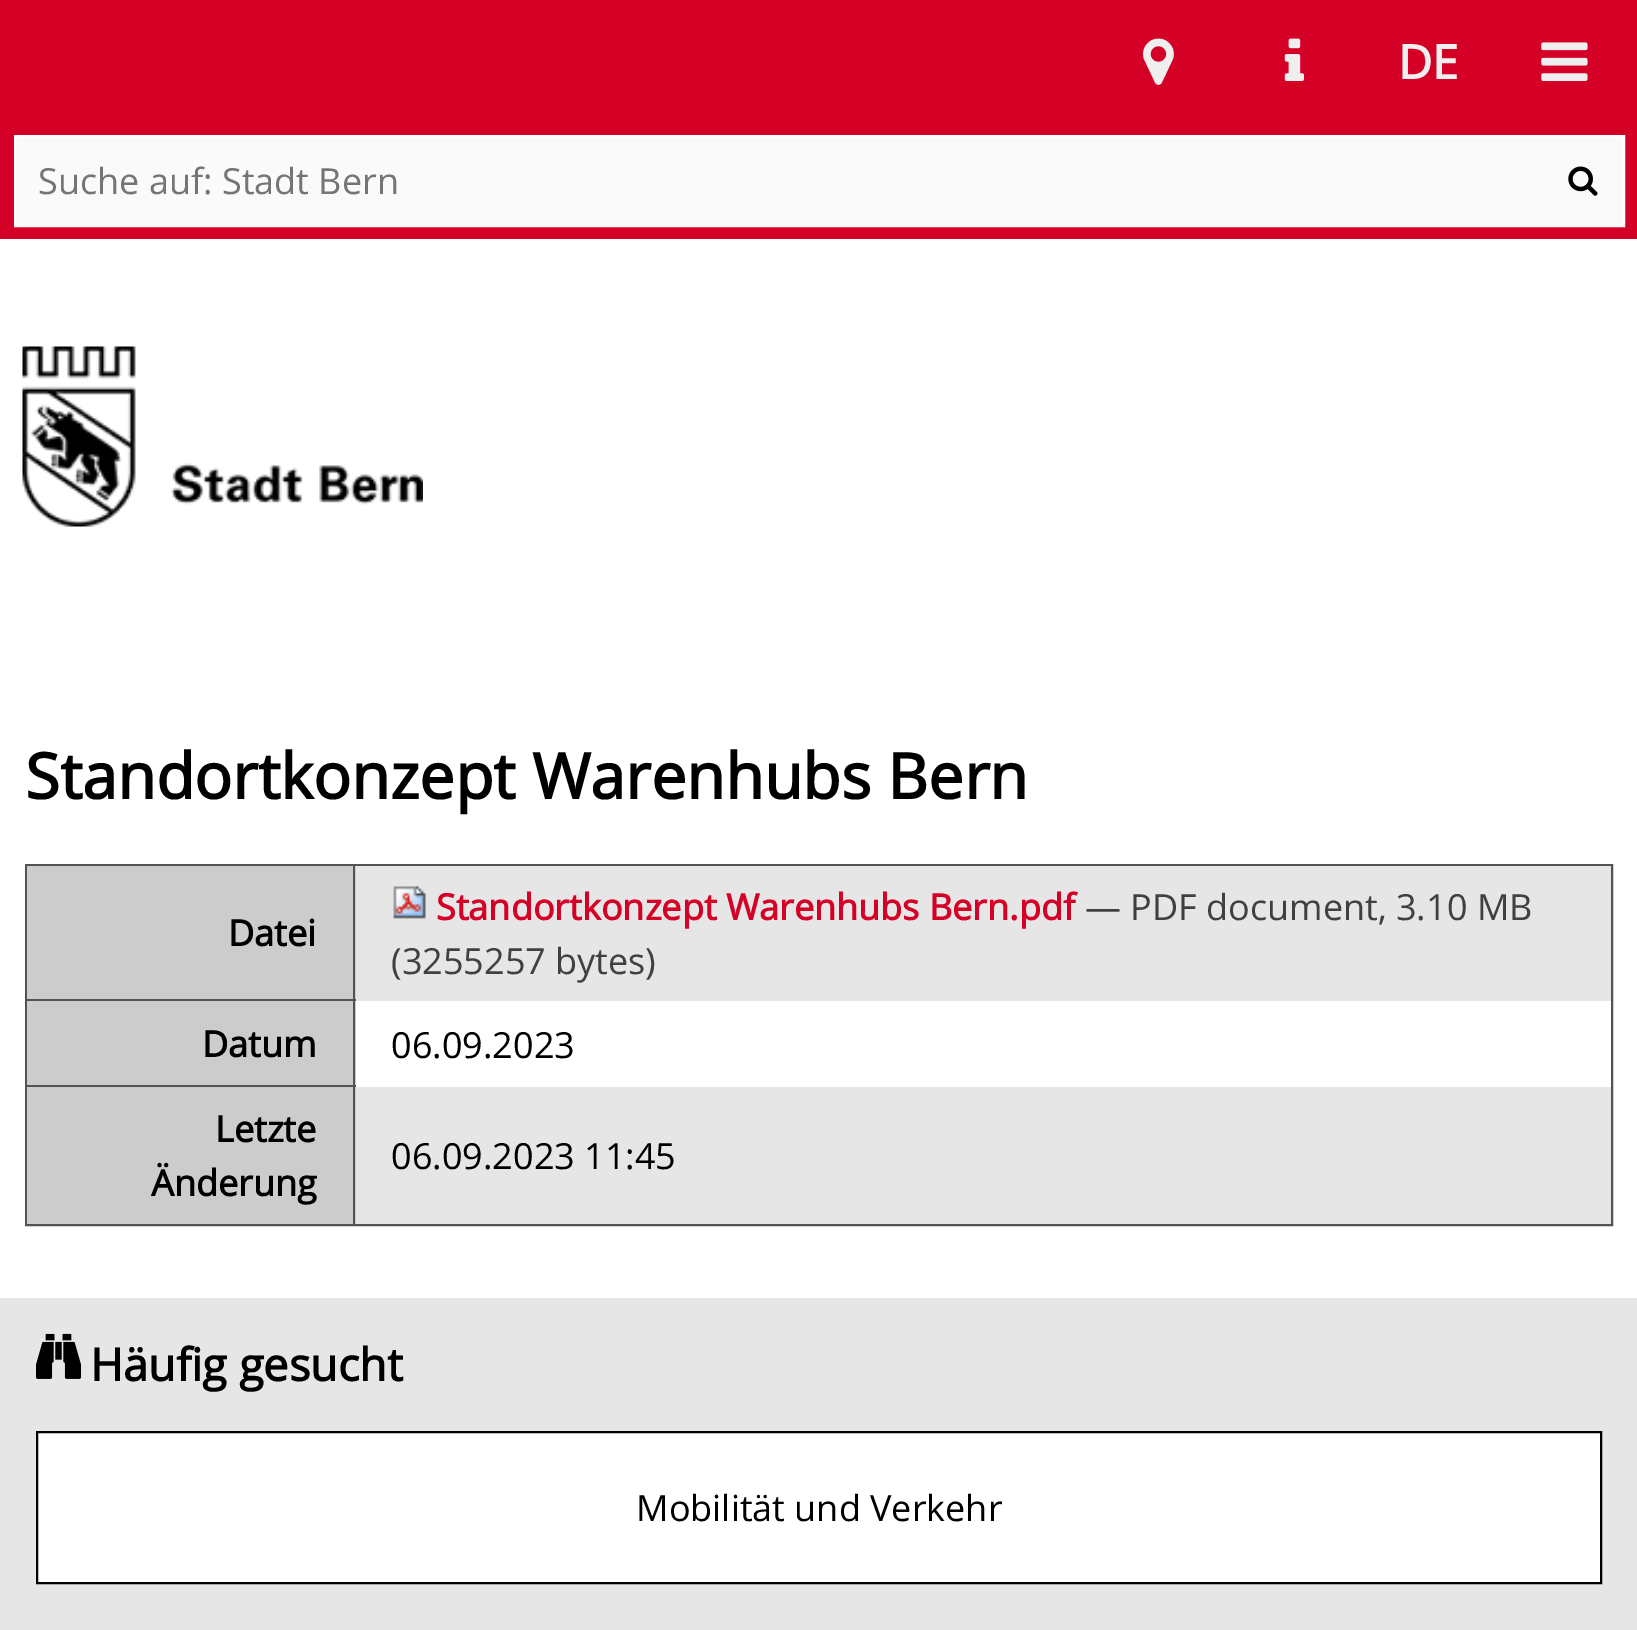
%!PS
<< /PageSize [1637 1630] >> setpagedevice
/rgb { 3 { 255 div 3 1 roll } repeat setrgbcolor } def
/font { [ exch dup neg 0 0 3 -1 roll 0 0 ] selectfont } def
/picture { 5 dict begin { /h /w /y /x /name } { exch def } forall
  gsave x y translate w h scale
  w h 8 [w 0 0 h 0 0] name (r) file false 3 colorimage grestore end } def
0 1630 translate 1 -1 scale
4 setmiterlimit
255 255 255 rgb
0 0 1637 1630 rectfill
213 0 37 rgb
0 0 1637 239 rectfill
(img/1.rgb) 1143 38 31 47 picture
(img/2.rgb) 1284 38 21 43 picture
(img/3.rgb) 1541 42 47 39 picture
250 250 250 rgb
15 136 moveto 1624 136 lineto 1624 226 lineto 15 226 lineto closepath gsave fill grestore
255 255 255 rgb
2 setlinewidth
stroke
(img/4.rgb) 1568 166 30 30 picture
(img/5.rgb) 22 346 401 181 picture
83 83 83 rgb
26 865 1586 360 rectstroke
[
  [27 866 329 133 204 204 204]
  [353 866 2 135 83 83 83]
  [27 999 329 2 83 83 83]
  [356 866 1255 135 230 230 230]
] { aload pop rgb rectfill } forall
(img/6.rgb) 393 886 33 33 picture
[
  [27 1001 329 84 204 204 204]
  [353 1001 2 86 83 83 83]
  [27 1085 329 2 83 83 83]
  [27 1087 329 137 204 204 204]
  [353 1087 2 137 83 83 83]
  [356 1087 1255 137 230 230 230]
  [0 1298 1637 332 230 230 230]
] { aload pop rgb rectfill } forall
(img/7.rgb) 36 1333 45 46 picture
255 255 255 rgb
37 1432 moveto 1601 1432 lineto 1601 1583 lineto 37 1583 lineto closepath gsave fill grestore
0 0 0 rgb
stroke
/OpenSans-Bold 47 font
239 239 239 rgb
1398 79 moveto (DE) show
/OpenSans-Regular 36 font
117 117 117 rgb
38 194 moveto (Suche auf: Stadt Bern) show
/OpenSans-Bold 63 font
0 0 0 rgb
25 799 moveto (Standortkonzept Warenhubs Bern) show
/OpenSans-Bold 36 font
228 946 moveto (Datei) show
213 0 37 rgb
436 920 moveto (Standortkonzept Warenhubs Bern.pdf) show
/OpenSans-Regular 36 font
64 64 64 rgb
1085 920 moveto (— PDF document, 3.10 MB) show
391 974 moveto (\(3255257 bytes\)) show
/OpenSans-Bold 36 font
0 0 0 rgb
202 1057 moveto (Datum) show
/OpenSans-Regular 36 font
391 1058 moveto (06.09.2023) show
/OpenSans-Bold 36 font
215 1142 moveto (Letzte) show
151 1196 moveto (Änderung) show
/OpenSans-Regular 36 font
391 1169 moveto (06.09.2023 11:45) show
/OpenSans-Bold 45 font
90 1381 moveto (Häufig gesucht) show
/OpenSans-Regular 36 font
636 1521 moveto (Mobilität und Verkehr) show
showpage
